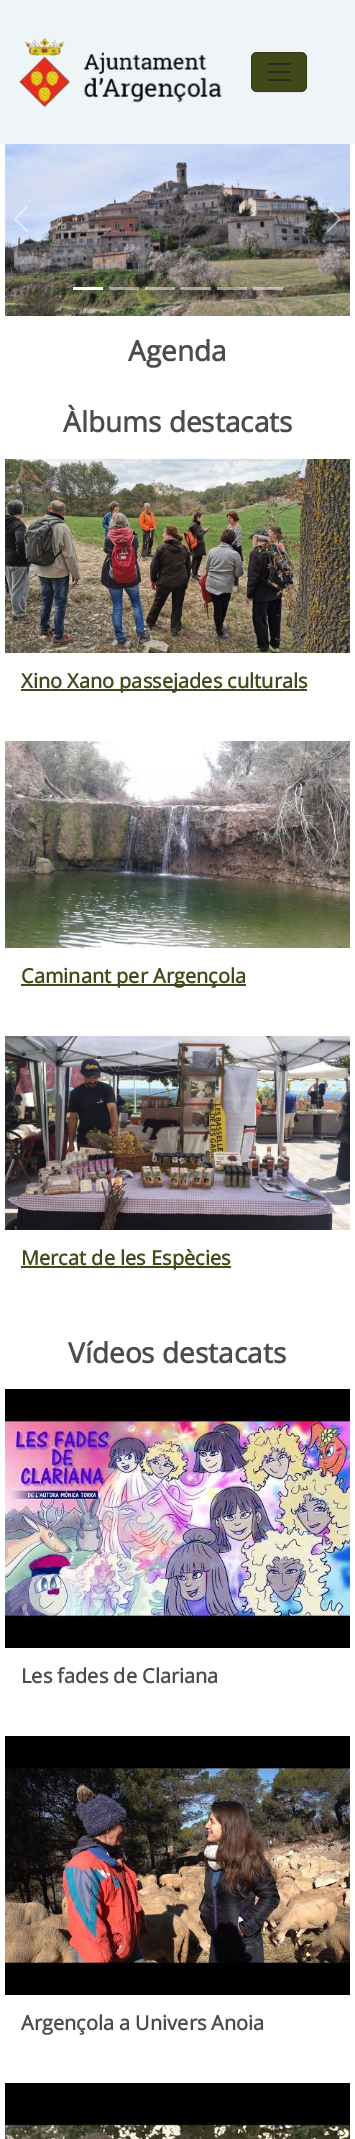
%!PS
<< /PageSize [355 2139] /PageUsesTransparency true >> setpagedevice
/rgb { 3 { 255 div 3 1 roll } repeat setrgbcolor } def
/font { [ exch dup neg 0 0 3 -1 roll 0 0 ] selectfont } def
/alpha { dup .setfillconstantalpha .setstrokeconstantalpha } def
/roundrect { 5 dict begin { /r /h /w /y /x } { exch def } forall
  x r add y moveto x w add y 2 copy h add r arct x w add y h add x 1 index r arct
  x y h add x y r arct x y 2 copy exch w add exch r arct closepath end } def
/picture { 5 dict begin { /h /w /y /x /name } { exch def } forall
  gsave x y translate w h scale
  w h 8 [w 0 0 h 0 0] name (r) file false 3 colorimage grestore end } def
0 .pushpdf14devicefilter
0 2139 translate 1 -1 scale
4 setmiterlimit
255 255 255 rgb
0 0 355 2139 rectfill
239 244 247 rgb
0 0 355 144 rectfill
(img/1.rgb) 19 37 203 71 picture
65 73 26 rgb
251 52 56 40 6 roundrect fill
0.15 alpha
0 0 0 rgb
251.5 52.5 55 39 5.5 roundrect stroke
1 alpha
(img/2.rgb) 267 63 24 18 picture
(img/3.rgb) 5 144 345 172 picture
(img/4.rgb) 14 206 14 26 picture
(img/5.rgb) 327 206 14 26 picture
[
  [73 287 30 3 255 255 255]
] { aload pop rgb rectfill } forall
0.5 alpha
[
  [109 287 30 3 255 255 255]
  [145 287 30 3 255 255 255]
  [181 287 30 3 255 255 255]
  [217 287 30 3 255 255 255]
  [253 287 30 3 255 255 255]
] { aload pop rgb rectfill } forall
1 alpha
(img/6.rgb) 5 459 345 194 picture
65 73 26 rgb
21 689 286 2 rectfill
(img/7.rgb) 5 741 345 207 picture
21 984 225 2 rectfill
(img/8.rgb) 5 1036 345 194 picture
21 1266 210 2 rectfill
(img/9.rgb) 5 1389 345 259 picture
(img/10.rgb) 5 1736 345 259 picture
(img/11.rgb) 5 2083 345 56 picture
/OpenSans-Bold 28 font
76 76 76 rgb
128 361 moveto (Agenda) show
63 432 moveto (Àlbums destacats) show
/OpenSans-Bold 20 font
65 73 26 rgb
[
  [(Xino Xano passejades culturals) 21 688]
  [(Caminant per Argençola) 21 983]
  [(Mercat de les Espècies) 21 1265]
] { aload pop moveto show } forall
/OpenSans-Bold 28 font
76 76 76 rgb
68 1363 moveto (Vídeos destacats) show
/OpenSans-Bold 20 font
21 1683 moveto (Les fades de Clariana) show
21 2030 moveto (Argençola a Univers Anoia) show
.poppdf14devicefilter showpage
